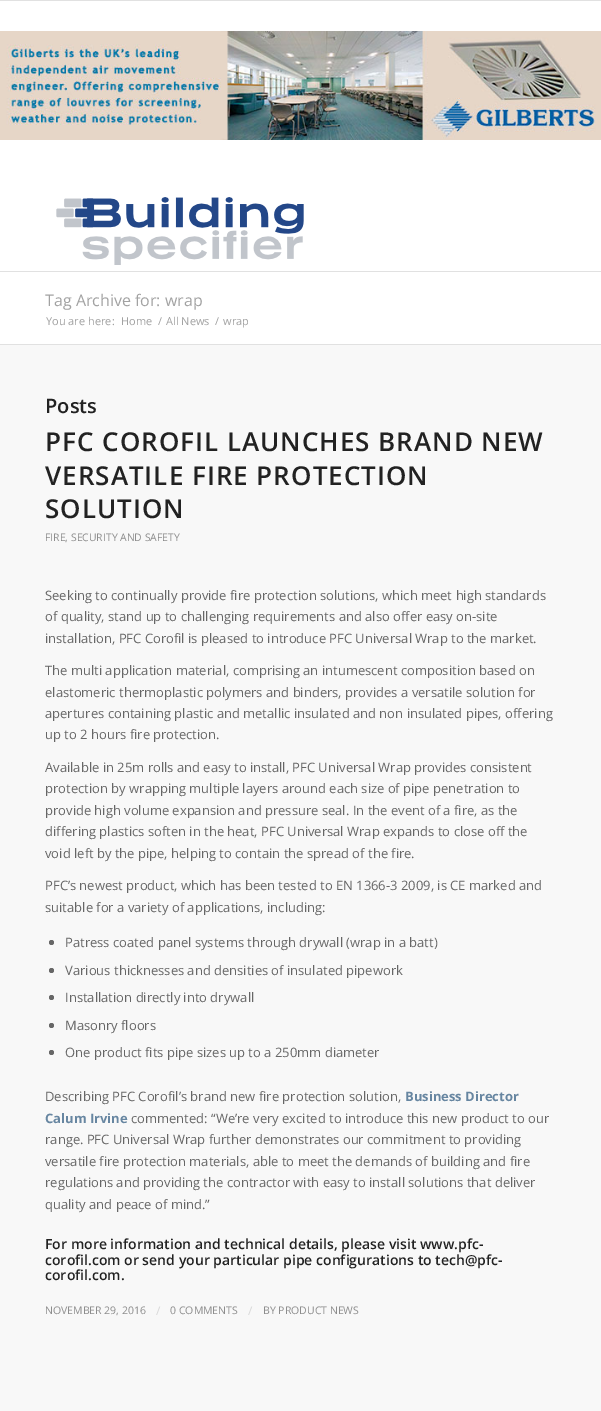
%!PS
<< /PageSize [601 1411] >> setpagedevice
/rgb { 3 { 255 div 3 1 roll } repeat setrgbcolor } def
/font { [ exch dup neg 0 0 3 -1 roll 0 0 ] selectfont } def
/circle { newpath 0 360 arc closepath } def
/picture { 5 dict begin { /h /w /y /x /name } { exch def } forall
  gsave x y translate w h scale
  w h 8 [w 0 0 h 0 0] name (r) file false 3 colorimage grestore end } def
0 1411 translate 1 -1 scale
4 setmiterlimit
255 255 255 rgb
0 0 601 1411 rectfill
225 225 225 rgb
0 0 601 1 rectfill
0 271 601 1 rectfill
(img/1.rgb) 0 31 601 109 picture
(img/2.rgb) 56 197 248 68 picture
248 248 248 rgb
0 345 601 1066 rectfill
225 225 225 rgb
0 344 601 1 rectfill
102 102 102 rgb
51.5 942.5 2.5 circle fill
51.5 970.5 2.5 circle fill
51.5 997.5 2.5 circle fill
51.5 1025.5 2.5 circle fill
51.5 1052.5 2.5 circle fill
/OpenSans-Regular 16 font
162 162 162 rgb
45 306 moveto (Tag Archive for: wrap) show
/OpenSans-Regular 11 font
[
  [(You are here:) 46 325]
  [(Home) 121 325]
  [(/) 158 325]
  [(All News) 166 325]
  [(/) 215 325]
  [(wrap) 223 325]
] { aload pop moveto show } forall
/OpenSans-SemiBold 20 font
34 34 34 rgb
45 413 moveto (Posts) show
/OpenSans-SemiBold 26 font
45 451 moveto 1 0 (PFC COROFIL LAUNCHES BRAND NEW) ashow
45 485 moveto 1 0 (VERSATILE FIRE PROTECTION) ashow
45 518 moveto 1 0 (SOLUTION) ashow
/OpenSans-Regular 10.4 font
141 141 141 rgb
45 541 moveto (FIRE, SECURITY AND SAFETY) show
/OpenSans-Regular 13 font
102 102 102 rgb
[
  [(Seeking to continually provide fire protection solutions, which meet high standards) 45 600]
  [(of quality, stand up to challenging requirements and also offer easy on-site) 45 621]
  [(installation, PFC Corofil is pleased to introduce PFC Universal Wrap to the market.) 45 643]
  [(The multi application material, comprising an intumescent composition based on) 45 675]
  [(elastomeric thermoplastic polymers and binders, provides a versatile solution for) 45 697]
  [(apertures containing plastic and metallic insulated and non insulated pipes, offering) 45 718]
  [(up to 2 hours fire protection.) 45 739]
  [(Available in 25m rolls and easy to install, PFC Universal Wrap provides consistent) 45 772]
  [(protection by wrapping multiple layers around each size of pipe penetration to) 45 793]
  [(provide high volume expansion and pressure seal. In the event of a fire, as the) 45 815]
  [(differing plastics soften in the heat, PFC Universal Wrap expands to close off the) 45 836]
  [(void left by the pipe, helping to contain the spread of the fire.) 45 858]
  [(PFC’s newest product, which has been tested to EN 1366-3 2009, is CE marked and) 45 890]
  [(suitable for a variety of applications, including:) 45 912]
  [(Patress coated panel systems through drywall \(wrap in a batt\)) 65 947]
  [(Various thicknesses and densities of insulated pipework) 65 975]
  [(Installation directly into drywall) 65 1002]
  [(Masonry floors) 65 1030]
  [(One product fits pipe sizes up to a 250mm diameter) 65 1057]
  [(Describing PFC Corofil’s brand new fire protection solution,) 45 1101]
] { aload pop moveto show } forall
/OpenSans-Bold 13 font
103 134 161 rgb
405 1101 moveto (Business Director) show
45 1123 moveto (Calum Irvine) show
/OpenSans-Regular 13 font
102 102 102 rgb
[
  [(commented: “We’re very excited to introduce this new product to our) 131 1123]
  [(range. PFC Universal Wrap further demonstrates our commitment to providing) 45 1144]
  [(versatile fire protection materials, able to meet the demands of building and fire) 45 1166]
  [(regulations and providing the contractor with easy to install solutions that deliver) 45 1187]
  [(quality and peace of mind.”) 45 1209]
] { aload pop moveto show } forall
/OpenSans-SemiBold 14 font
34 34 34 rgb
[
  [(For more information and technical details, please visit www.pfc-) 45 1249]
  [(corofil.com or send your particular pipe configurations to tech@pfc-) 45 1265]
  [(corofil.com.) 45 1280]
] { aload pop moveto show } forall
/OpenSans-Regular 10.5 font
141 141 141 rgb
45 1314 moveto (NOVEMBER 29, 2016) show
/OpenSans-Regular 12 font
216 216 216 rgb
156 1315 moveto (/) show
/OpenSans-Regular 10.5 font
141 141 141 rgb
170 1314 moveto (0 COMMENTS) show
/OpenSans-Regular 12 font
216 216 216 rgb
248 1315 moveto (/) show
/OpenSans-Regular 10.5 font
141 141 141 rgb
263 1314 moveto (BY PRODUCT NEWS) show
showpage
